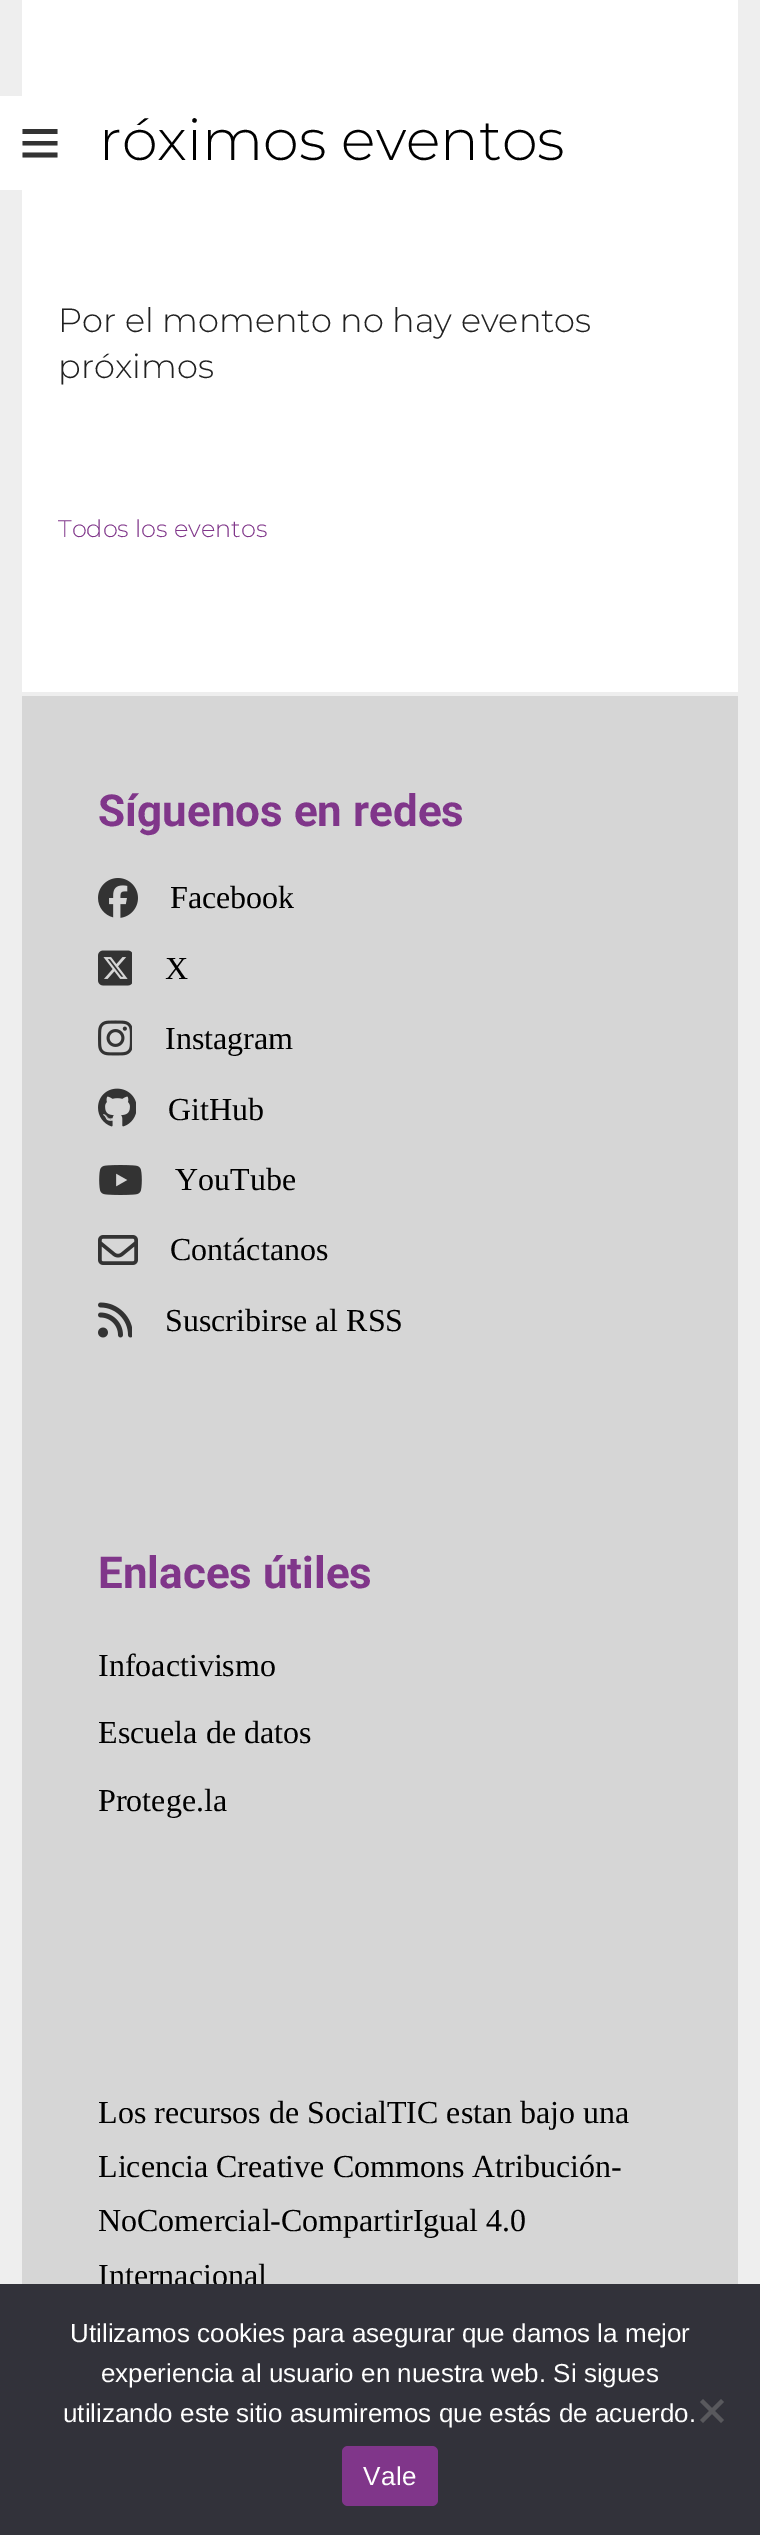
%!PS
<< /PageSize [760 2535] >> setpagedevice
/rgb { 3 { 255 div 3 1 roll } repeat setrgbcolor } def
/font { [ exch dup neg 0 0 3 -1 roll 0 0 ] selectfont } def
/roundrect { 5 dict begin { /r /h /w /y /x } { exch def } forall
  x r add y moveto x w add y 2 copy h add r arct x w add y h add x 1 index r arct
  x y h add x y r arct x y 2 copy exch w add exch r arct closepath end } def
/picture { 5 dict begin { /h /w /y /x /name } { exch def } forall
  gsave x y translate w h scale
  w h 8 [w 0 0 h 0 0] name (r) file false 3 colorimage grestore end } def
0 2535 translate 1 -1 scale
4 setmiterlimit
238 238 238 rgb
0 0 760 2535 rectfill
255 255 255 rgb
0 96 22 94 rectfill
22 0 716 692 rectfill
51 51 51 rgb
57.5 129 moveto 57.5 134 lineto 22.5 134 lineto 22.5 129 lineto closepath 22.5 145.5 moveto 57.5 145.5 lineto 57.5 141 lineto 22.5 141 lineto closepath 22.5 157.5 moveto 57.5 157.5 lineto 57.5 152.5 lineto 22.5 152.5 lineto closepath fill
214 214 214 rgb
22 696 716 1588 rectfill
(img/1.rgb) 98 878 40 40 picture
(img/2.rgb) 98 950 34 36 picture
(img/3.rgb) 98 1020 34 36 picture
(img/4.rgb) 98 1088 38 39 picture
(img/5.rgb) 99 1165 43 30 picture
(img/6.rgb) 98 1235 40 30 picture
(img/7.rgb) 98 1302 34 36 picture
/Montserrat-Light 57.5 font
0 0 0 rgb
99 160 moveto (róximos eventos) show
/Montserrat-Light 33.6 font
33 33 33 rgb
58 332 moveto (Por el momento no hay eventos) show
58 378 moveto (próximos) show
/Montserrat-Light 24 font
128 54 138 rgb
58 537 moveto (Todos los eventos) show
/Roboto-Bold 44 font
98 826 moveto (Síguenos en redes) show
/LiberationSerif-Regular 32 font
0 0 0 rgb
[
  [(Facebook) 170 908]
  [(X) 165 979]
  [(Instagram) 165 1049]
  [(GitHub) 168 1120]
  [(YouTube) 175 1190]
  [(Contáctanos) 170 1260]
  [(Suscribirse al RSS) 165 1331]
] { aload pop moveto show } forall
/Roboto-Bold 44 font
128 54 138 rgb
98 1588 moveto (Enlaces útiles) show
/LiberationSerif-Regular 32 font
0 0 0 rgb
[
  [(Infoactivismo) 98 1676]
  [(Escuela de datos) 98 1743]
  [(Protege.la) 98 1811]
  [(Los recursos de SocialTIC estan bajo una) 98 2123]
  [(Licencia Creative Commons Atribución-) 98 2177]
  [(NoComercial-CompartirIgual 4.0) 98 2231]
  [(Internacional) 98 2286]
] { aload pop moveto show } forall
50 50 58 rgb
0 2284 760 251 rectfill
/LiberationSans-Regular 26 font
255 255 255 rgb
[
  [(Utilizamos cookies para asegurar que damos la mejor) 70 2342]
  [(experiencia al usuario en nuestra web. Si sigues) 101 2382]
  [(utilizando este sitio asumiremos que estás de acuerdo.) 63 2422]
] { aload pop moveto show } forall
89 89 93 rgb
721 2399 moveto 724 2402 lineto 703 2423 lineto 700 2420 lineto closepath fill
700 2402 moveto 703 2399 lineto 724 2420 lineto 721 2423 lineto closepath fill
128 54 138 rgb
342 2446 96 60 6 roundrect fill
255 255 255 rgb
363 2485 moveto 0.5 0 (Vale) ashow
showpage
